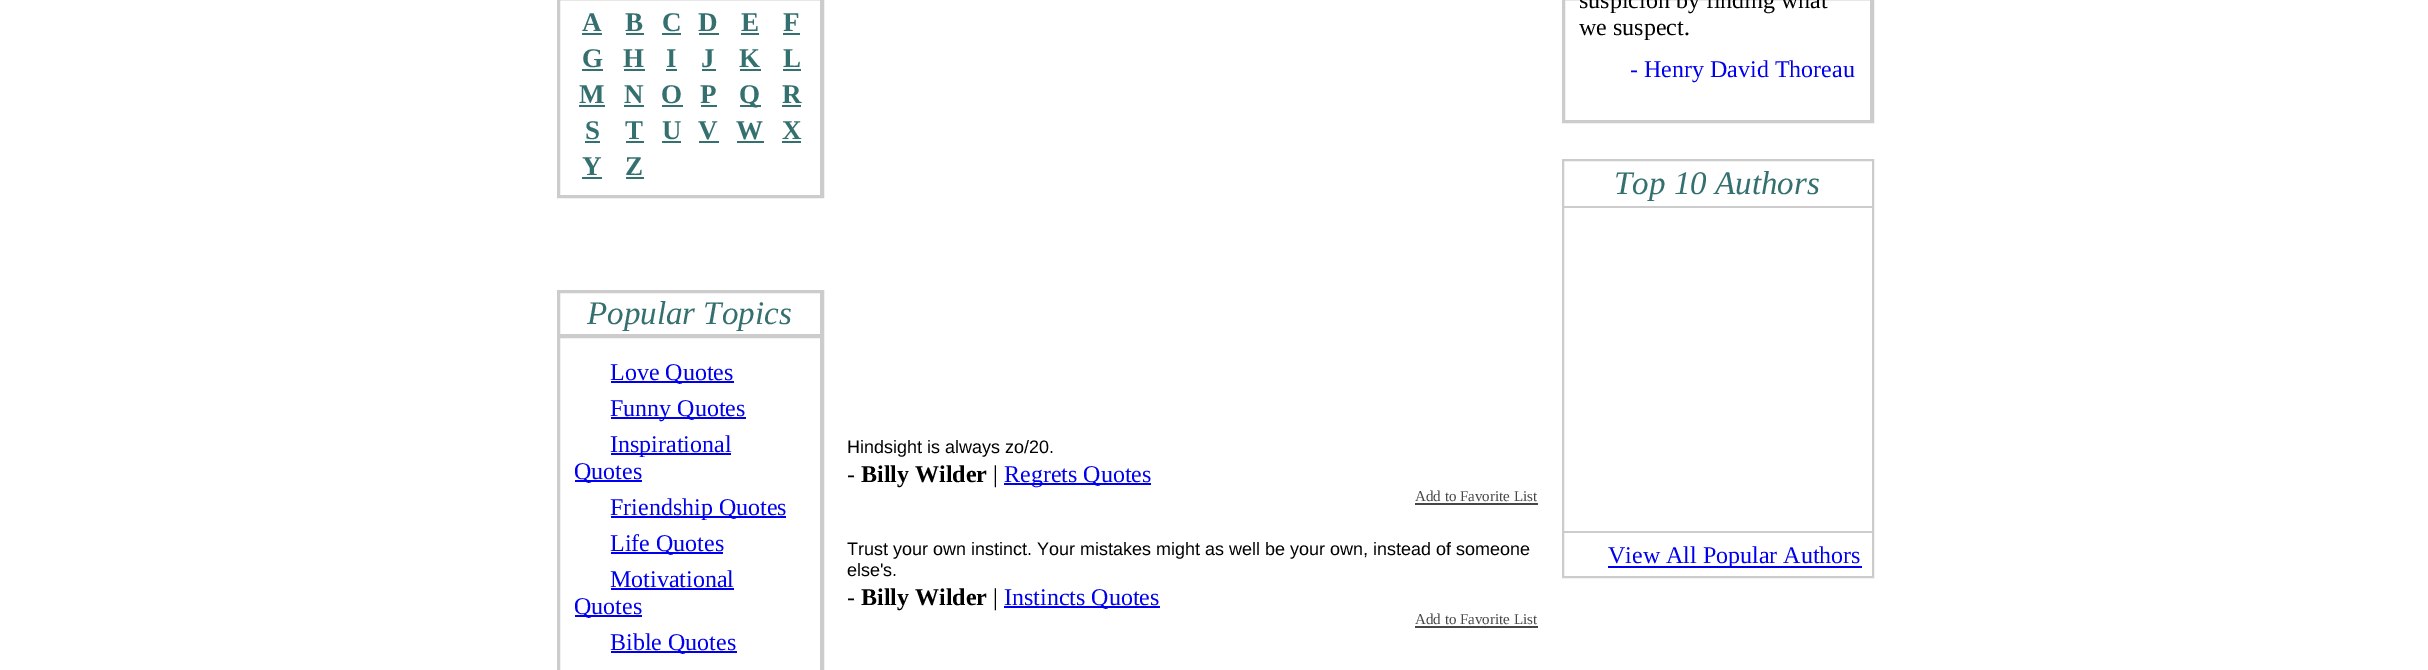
%!PS
<< /PageSize [2428 670] >> setpagedevice
/rgb { 3 { 255 div 3 1 roll } repeat setrgbcolor } def
/font { [ exch dup neg 0 0 3 -1 roll 0 0 ] selectfont } def
0 670 translate 1 -1 scale
4 setmiterlimit
255 255 255 rgb
0 0 2428 670 rectfill
204 204 204 rgb
2 setlinewidth
558 -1 265 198 rectstroke
559 -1 262 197 rectstroke
[
  [582 33 20 2 52 112 112]
  [626 33 18 2 52 112 112]
  [662 33 19 2 52 112 112]
  [699 33 20 2 52 112 112]
  [741 33 18 2 52 112 112]
  [783 33 17 2 52 112 112]
  [582 69 21 2 52 112 112]
  [624 69 21 2 52 112 112]
  [666 69 11 2 52 112 112]
  [702 69 14 2 52 112 112]
  [740 69 21 2 52 112 112]
  [783 69 18 2 52 112 112]
  [579 105 26 2 52 112 112]
  [624 105 20 2 52 112 112]
  [662 105 21 2 52 112 112]
  [701 105 16 2 52 112 112]
  [740 105 21 2 52 112 112]
  [782 105 19 2 52 112 112]
  [585 141 15 2 52 112 112]
  [626 141 18 2 52 112 112]
  [662 141 19 2 52 112 112]
  [699 141 20 2 52 112 112]
  [737 141 27 2 52 112 112]
  [782 141 19 2 52 112 112]
  [582 177 20 2 52 112 112]
  [626 177 18 2 52 112 112]
] { aload pop rgb rectfill } forall
204 204 204 rgb
558 291 265 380 rectstroke
559 292 262 43 rectstroke
559 337 262 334 rectstroke
[
  [611 381 123 2 0 0 238]
  [611 417 135 2 0 0 238]
  [611 453 120 2 0 0 238]
  [575 480 67 2 0 0 238]
  [611 516 175 2 0 0 238]
  [611 552 112 2 0 0 238]
  [611 588 123 2 0 0 238]
  [575 615 67 2 0 0 238]
  [611 651 126 2 0 0 238]
  [1004 483 147 2 0 0 238]
  [1415 503 123 2 70 70 70]
  [1004 606 156 2 0 0 238]
  [1415 626 123 2 70 70 70]
] { aload pop rgb rectfill } forall
204 204 204 rgb
1563 -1 310 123 rectstroke
1564 -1 307 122 rectstroke
1563 160 310 417 rectstroke
[
  [1563 206 309 2 204 204 204]
  [1563 531 309 2 204 204 204]
  [1608 566 254 2 0 0 238]
] { aload pop rgb rectfill } forall
/LiberationSerif-Bold 27 font
52 112 112 rgb
[
  [(A) 582 31]
  [(B) 625 31]
  [(C) 662 31]
  [(D) 698 31]
  [(E) 741 31]
  [(F) 783 31]
  [(G) 582 67]
  [(H) 623 67]
  [(I) 666 67]
  [(J) 701 67]
  [(K) 739 67]
  [(L) 783 67]
  [(M) 579 103]
  [(N) 624 103]
  [(O) 661 103]
  [(P) 700 103]
  [(Q) 739 103]
  [(R) 782 103]
  [(S) 585 139]
  [(T) 625 139]
  [(U) 662 139]
  [(V) 698 139]
  [(W) 736 139]
  [(X) 782 139]
  [(Y) 582 175]
  [(Z) 625 175]
] { aload pop moveto show } forall
/LiberationSerif-Italic 33 font
587 324 moveto (Popular Topics) show
/LiberationSerif-Regular 24 font
0 0 238 rgb
[
  [(Love Quotes) 610 380]
  [(Funny Quotes) 610 416]
  [(Inspirational) 610 452]
  [(Quotes) 574 479]
  [(Friendship Quotes) 610 515]
  [(Life Quotes) 610 551]
  [(Motivational) 610 587]
  [(Quotes) 574 614]
  [(Bible Quotes) 610 650]
] { aload pop moveto show } forall
/LiberationSans-Regular 18 font
0 0 0 rgb
847 453 moveto (Hindsight is always zo/20.) show
/LiberationSerif-Regular 24 font
847 482 moveto (-) show
/LiberationSerif-Bold 24 font
861 482 moveto (Billy Wilder) show
/LiberationSerif-Regular 24 font
993 482 moveto (|) show
0 0 238 rgb
1004 482 moveto (Regrets Quotes) show
/LiberationSerif-Regular 15 font
70 70 70 rgb
1415 501 moveto (Add to Favorite List) show
/LiberationSans-Regular 18 font
0 0 0 rgb
847 555 moveto (Trust your own instinct. Your mistakes might as well be your own, instead of someone) show
847 576 moveto (else's.) show
/LiberationSerif-Regular 24 font
847 605 moveto (-) show
/LiberationSerif-Bold 24 font
861 605 moveto (Billy Wilder) show
/LiberationSerif-Regular 24 font
993 605 moveto (|) show
0 0 238 rgb
1004 605 moveto (Instincts Quotes) show
/LiberationSerif-Regular 15 font
70 70 70 rgb
1415 624 moveto (Add to Favorite List) show
/LiberationSerif-Regular 24 font
0 0 0 rgb
1579 8 moveto (suspicion by finding what) show
1579 35 moveto (we suspect.) show
0 0 238 rgb
1630 77 moveto (- Henry David Thoreau) show
/LiberationSerif-Italic 33 font
52 112 112 rgb
1614 194 moveto (Top 10 Authors) show
/LiberationSerif-Regular 24 font
0 0 238 rgb
1608 563 moveto (View All Popular Authors) show
showpage
